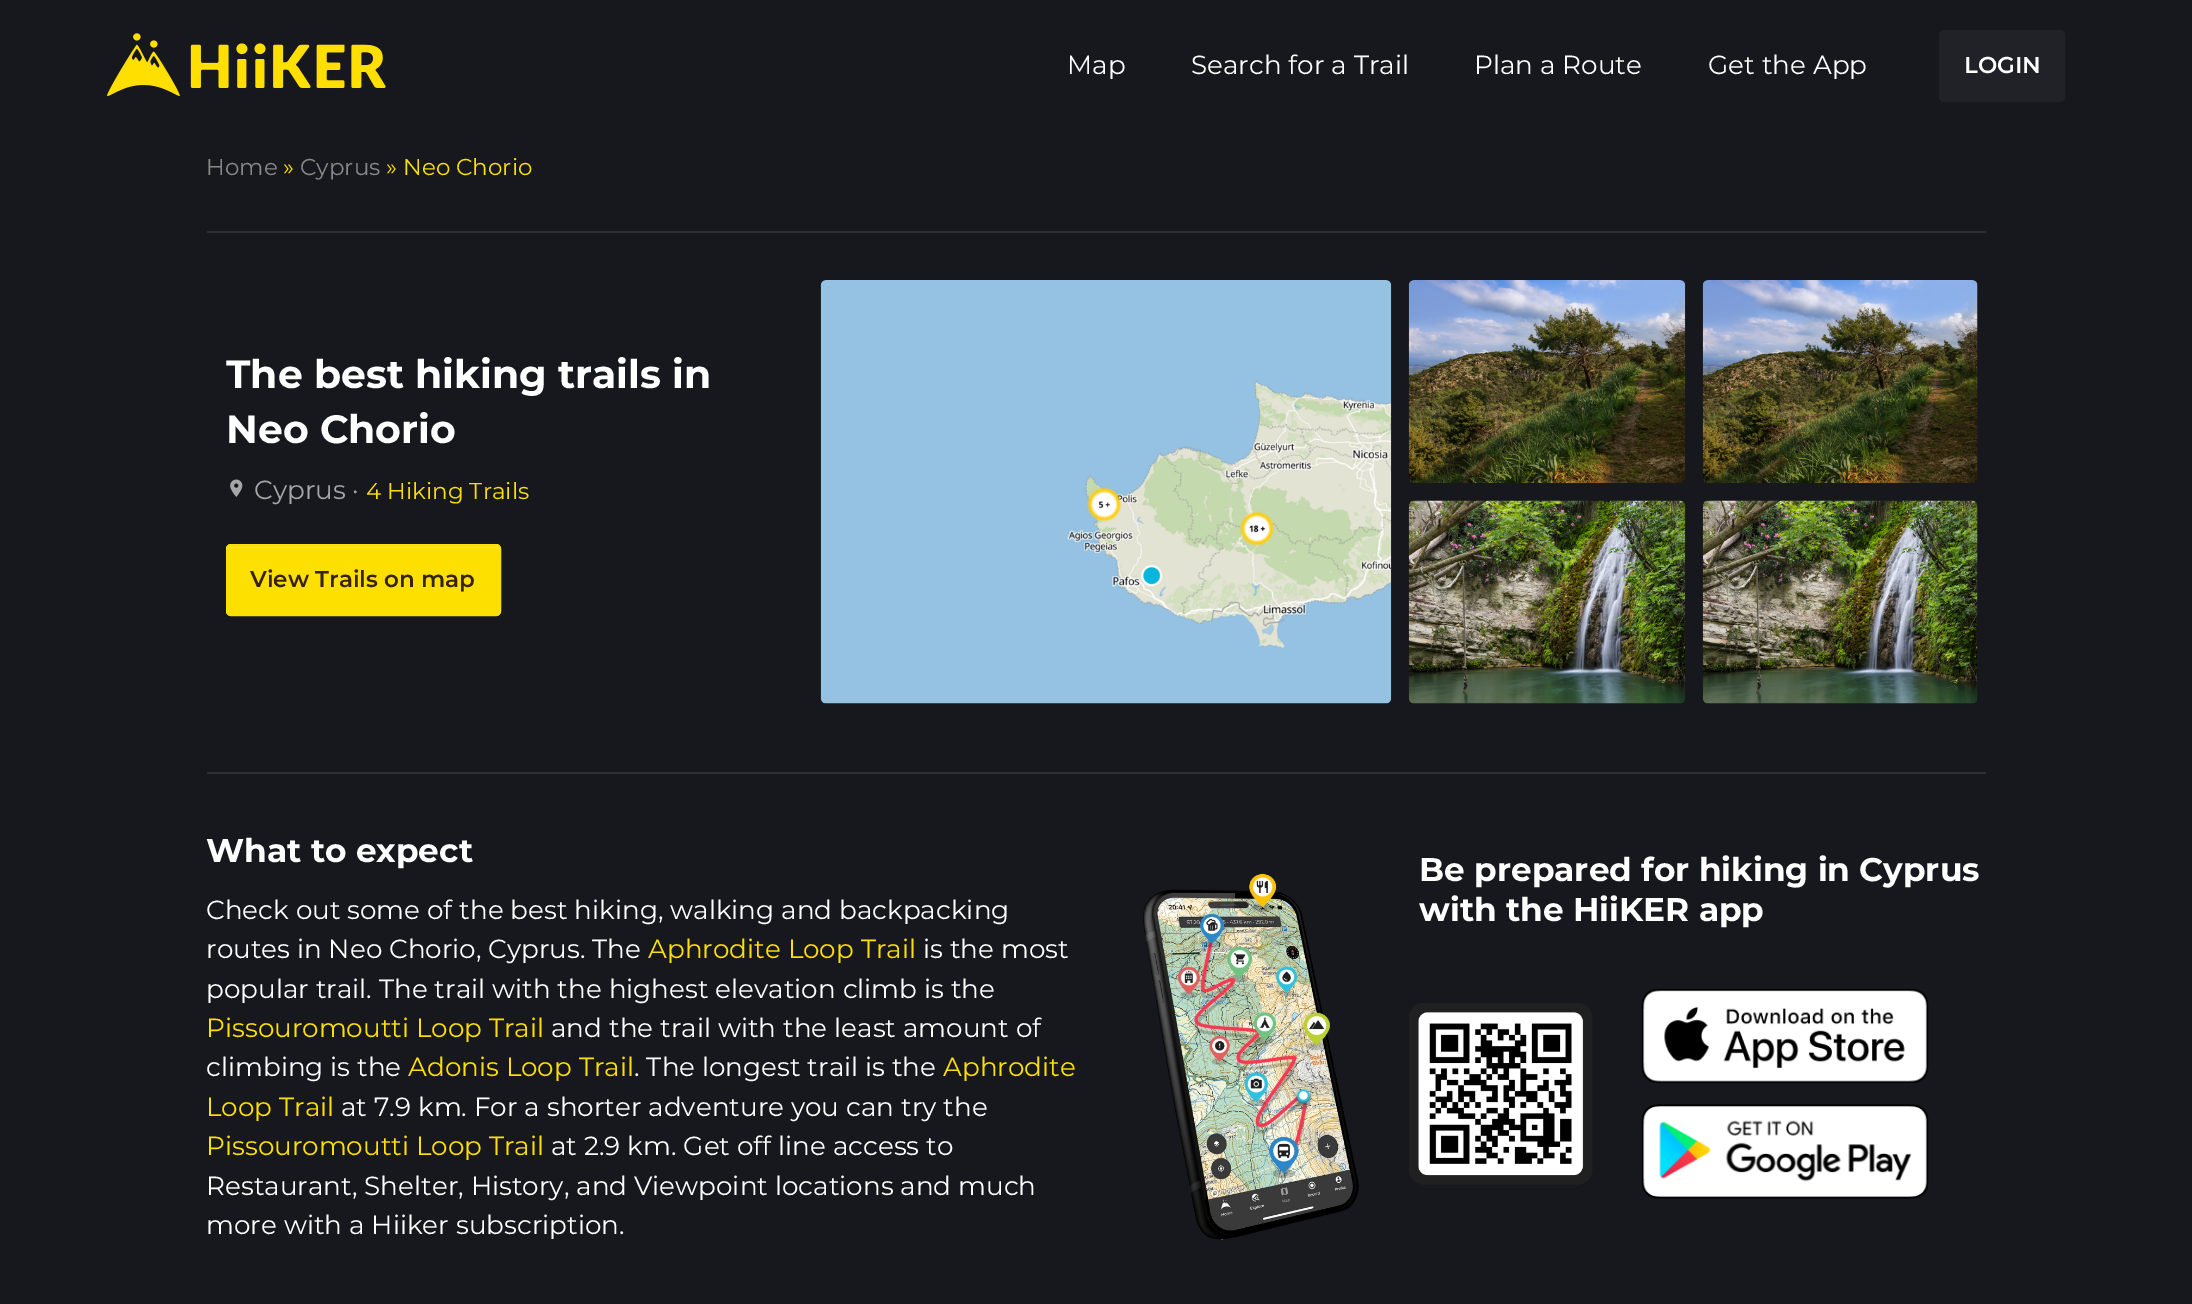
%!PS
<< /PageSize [2192 1304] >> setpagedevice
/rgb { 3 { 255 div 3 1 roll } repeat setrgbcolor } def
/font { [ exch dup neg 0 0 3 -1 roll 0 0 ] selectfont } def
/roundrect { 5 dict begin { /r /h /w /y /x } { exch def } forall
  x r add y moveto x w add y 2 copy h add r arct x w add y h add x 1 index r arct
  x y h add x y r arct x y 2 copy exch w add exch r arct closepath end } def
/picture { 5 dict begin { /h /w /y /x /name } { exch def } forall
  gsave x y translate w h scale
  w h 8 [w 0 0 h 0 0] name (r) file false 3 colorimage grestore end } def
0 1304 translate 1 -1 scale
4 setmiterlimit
23 24 29 rgb
0 0 2192 1304 rectfill
(img/1.rgb) 107 33 279 63 picture
33 34 40 rgb
1940 31 124 70 4 roundrect gsave fill grestore
2 setlinewidth
stroke
45 46 49 rgb
207 231 1779 2 rectfill
(img/2.rgb) 230 479 13 18 picture
253 223 0 rgb
226 544 275 72 5 roundrect fill
253 228 38 rgb
231 548 moveto 496 548 lineto 499 550 lineto 499 551 lineto 499 548 498 546 495 546 curveto 232 546 lineto 229 546 228 548 228 551 curveto 228 549 229 548 231 548 curveto closepath fill
253 223 0 rgb
227 545 273 70 4 roundrect stroke
(img/3.rgb) 820 280 572 424 picture
(img/4.rgb) 1408 280 278 203 picture
(img/5.rgb) 1702 280 276 203 picture
(img/6.rgb) 1408 500 278 204 picture
(img/7.rgb) 1702 500 276 204 picture
45 46 49 rgb
207 772 1779 2 rectfill
(img/8.rgb) 1143 873 216 368 picture
(img/9.rgb) 1409 1003 184 182 picture
(img/10.rgb) 1641 989 288 94 picture
(img/11.rgb) 1641 1104 288 95 picture
/Montserrat-Regular 26.25 font
255 255 255 rgb
[
  [(Map) 1067 74]
  [(Search for a Trail) 1191 74]
  [(Plan a Route) 1474 74]
  [(Get the App) 1708 74]
] { aload pop moveto show } forall
/Montserrat-SemiBold 23 font
1964 73 moveto (LOGIN) show
/Montserrat-Regular 23 font
137 137 137 rgb
206 175 moveto (Home) show
253 223 0 rgb
283 175 moveto (») show
137 137 137 rgb
300 175 moveto (Cyprus) show
253 223 0 rgb
386 175 moveto (» Neo Chorio) show
/Montserrat-Bold 39.4 font
255 255 255 rgb
226 388 moveto (The best hiking trails in) show
226 443 moveto (Neo Chorio) show
/Montserrat-Regular 26.25 font
166 166 166 rgb
254 499 moveto (Cyprus ·) show
/Montserrat-Regular 23 font
253 223 0 rgb
366 499 moveto (4 Hiking Trails) show
/Montserrat-SemiBold 23 font
54 34 15 rgb
250 587 moveto (View Trails on map) show
/Montserrat-Bold 32.8 font
255 255 255 rgb
206 862 moveto (What to expect) show
/Montserrat-Regular 26.25 font
206 919 moveto (Check out some of the best hiking, walking and backpacking) show
206 958 moveto (routes in Neo Chorio, Cyprus. The) show
253 223 0 rgb
648 958 moveto (Aphrodite Loop Trail) show
255 255 255 rgb
923 958 moveto (is the most) show
206 998 moveto (popular trail. The trail with the highest elevation climb is the) show
253 223 0 rgb
206 1037 moveto (Pissouromoutti Loop Trail) show
255 255 255 rgb
551 1037 moveto (and the trail with the least amount of) show
206 1076 moveto (climbing is the) show
253 223 0 rgb
408 1076 moveto (Adonis Loop Trail) show
255 255 255 rgb
634 1076 moveto (. The longest trail is the) show
253 223 0 rgb
943 1076 moveto (Aphrodite) show
206 1116 moveto (Loop Trail) show
255 255 255 rgb
341 1116 moveto (at 7.9 km. For a shorter adventure you can try the) show
253 223 0 rgb
206 1155 moveto (Pissouromoutti Loop Trail) show
255 255 255 rgb
[
  [(at 2.9 km. Get off line access to) 551 1155]
  [(Restaurant, Shelter, History, and Viewpoint locations and much) 206 1195]
  [(more with a Hiiker subscription.) 206 1234]
] { aload pop moveto show } forall
/Montserrat-Bold 32.8 font
1419 881 moveto (Be prepared for hiking in Cyprus) show
1419 921 moveto (with the HiiKER app) show
showpage
